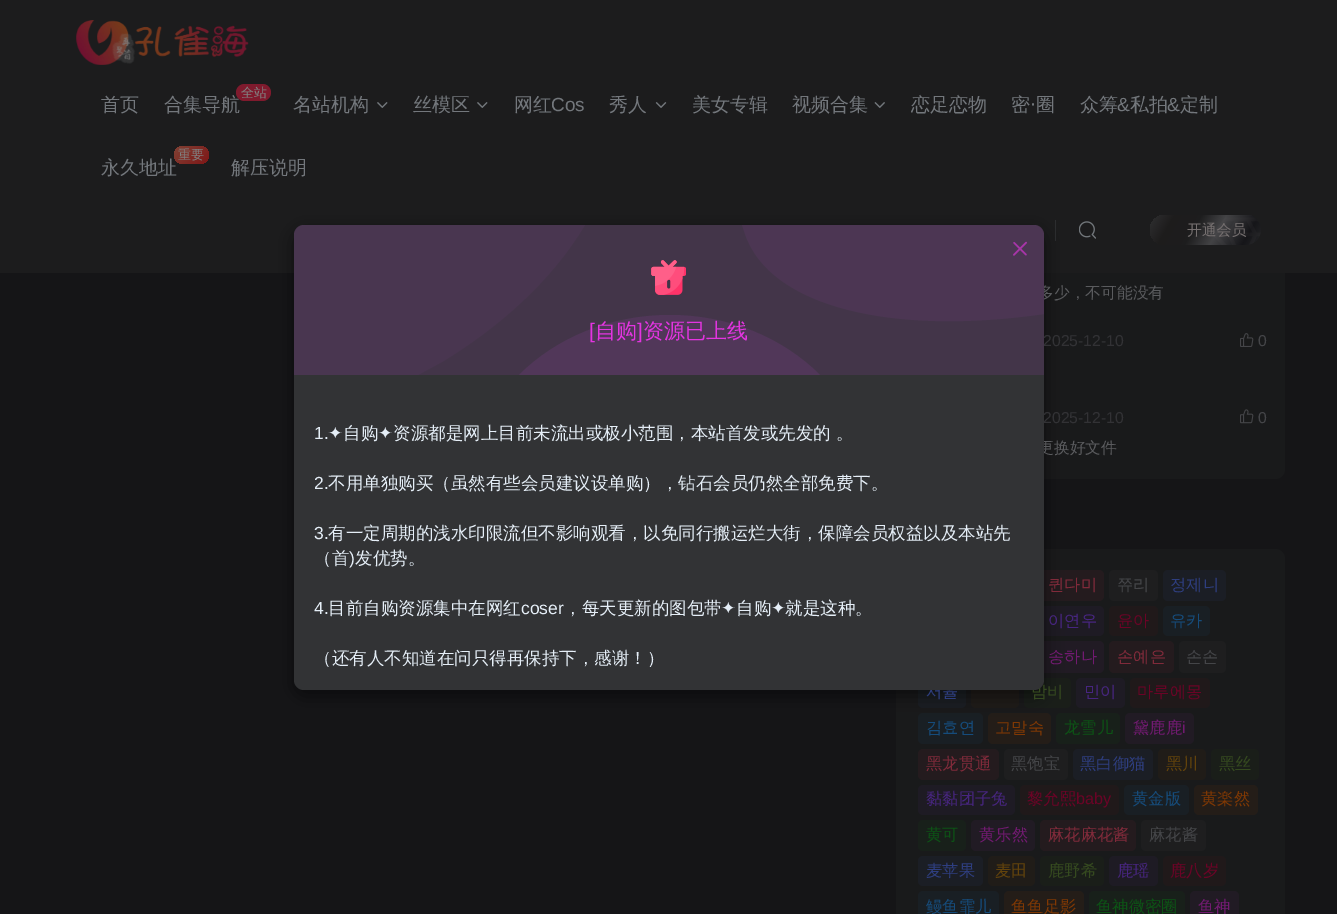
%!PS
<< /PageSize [1337 914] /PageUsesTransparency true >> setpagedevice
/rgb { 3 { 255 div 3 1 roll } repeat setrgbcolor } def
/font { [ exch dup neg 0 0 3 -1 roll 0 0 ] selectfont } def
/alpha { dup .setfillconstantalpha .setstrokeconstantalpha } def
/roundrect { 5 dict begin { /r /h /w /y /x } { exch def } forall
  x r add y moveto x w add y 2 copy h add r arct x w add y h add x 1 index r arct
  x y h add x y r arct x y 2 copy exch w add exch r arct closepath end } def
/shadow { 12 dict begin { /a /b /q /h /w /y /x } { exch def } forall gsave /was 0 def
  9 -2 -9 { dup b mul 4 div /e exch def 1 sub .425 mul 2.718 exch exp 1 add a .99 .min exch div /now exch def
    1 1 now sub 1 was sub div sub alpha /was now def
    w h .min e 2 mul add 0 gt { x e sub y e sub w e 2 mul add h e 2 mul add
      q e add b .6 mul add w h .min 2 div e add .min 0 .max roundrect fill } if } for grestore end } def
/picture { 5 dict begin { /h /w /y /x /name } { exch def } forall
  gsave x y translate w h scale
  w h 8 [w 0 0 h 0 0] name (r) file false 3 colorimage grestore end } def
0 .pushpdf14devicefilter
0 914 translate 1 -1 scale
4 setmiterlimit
21 21 23 rgb
0 0 1337 914 rectfill
25 26 27 rgb
896 -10 389 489 10 roundrect fill
28 28 29 rgb
0 0 1337 273 rectfill
(img/1.rgb) 76 20 173 45 picture
(img/2.rgb) 377 102 11 6 picture
(img/2.rgb) 477 102 11 6 picture
(img/3.rgb) 655 102 12 6 picture
(img/4.rgb) 874 102 11 6 picture
45 46 48 rgb
1055 220 1 21 rectfill
(img/5.rgb) 1079 221 17 18 picture
gsave 1150 215 111 30 15 roundrect clip newpath
<< /ShadingType 2 /ColorSpace /DeviceRGB /Coords [1254 258 1157 202] /Extend [true true] /Function << /FunctionType 3 /Domain [0 1] /Functions [<< /FunctionType 2 /Domain [0 1] /C0 [0.149 0.153 0.161] /C1 [0.082 0.082 0.098] /N 1 >> << /FunctionType 2 /Domain [0 1] /C0 [0.082 0.082 0.098] /C1 [0.263 0.263 0.271] /N 1 >> << /FunctionType 2 /Domain [0 1] /C0 [0.263 0.263 0.271] /C1 [0.114 0.114 0.118] /N 1 >> << /FunctionType 2 /Domain [0 1] /C0 [0.114 0.114 0.118] /C1 [0.114 0.11 0.11] /N 1 >> << /FunctionType 2 /Domain [0 1] /C0 [0.114 0.11 0.11] /C1 [0.184 0.188 0.192] /N 1 >>] /Bounds [0.15 0.4 0.6 0.8] /Encode [0 1 0 1 0 1 0 1 0 1] >> >> shfill grestore
25 26 27 rgb
896 549 389 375 10 roundrect fill
36 27 30 rgb
1040 570 64 31 5 roundrect fill
30 27 36 rgb
1040 606 64 30 5 roundrect fill
33 27 36 rgb
1040 641 64 32 5 roundrect fill
27 30 37 rgb
918 678 48 30 5 roundrect fill
32 28 24 rgb
971 678 48 30 5 roundrect fill
26 30 25 rgb
1024 678 47 30 5 roundrect fill
25 31 36 rgb
918 713 65 31 5 roundrect fill
36 29 24 rgb
988 713 63 31 5 roundrect fill
24 32 26 rgb
1056 713 64 31 5 roundrect fill
0 0 0 rgb
294 231 750 465 10 9.5 0.5 shadow
(img/9.rgb) 1240 333 14 14 picture
(img/10.rgb) 1240 409 14 15 picture
30 30 31 rgb
1109 570 49 31 5 roundrect fill
27 30 37 rgb
1163 570 63 31 5 roundrect fill
32 25 26 rgb
1109 606 49 30 5 roundrect fill
25 31 36 rgb
1163 606 47 30 5 roundrect fill
36 27 30 rgb
1109 641 65 32 5 roundrect fill
30 30 31 rgb
1179 641 47 32 5 roundrect fill
30 27 36 rgb
1076 678 49 30 5 roundrect fill
32 25 26 rgb
1130 678 80 30 5 roundrect fill
33 27 36 rgb
1125 713 69 31 5 roundrect fill
36 27 30 rgb
918 749 81 31 5 roundrect fill
30 30 31 rgb
1004 749 64 31 5 roundrect fill
27 30 37 rgb
1073 749 80 31 5 roundrect fill
32 28 24 rgb
1158 749 48 31 5 roundrect fill
26 30 25 rgb
1211 749 48 31 5 roundrect fill
30 27 36 rgb
918 785 97 30 5 roundrect fill
32 25 26 rgb
1020 785 99 30 5 roundrect fill
25 31 36 rgb
1124 785 65 30 5 roundrect fill
36 29 24 rgb
1194 785 64 30 5 roundrect fill
24 32 26 rgb
918 820 48 31 5 roundrect fill
33 27 36 rgb
971 820 64 31 5 roundrect fill
36 27 30 rgb
1040 820 96 31 5 roundrect fill
30 30 31 rgb
1141 820 65 31 5 roundrect fill
27 30 37 rgb
918 856 65 30 5 roundrect fill
32 28 24 rgb
988 856 47 30 5 roundrect fill
26 30 25 rgb
1040 856 64 30 5 roundrect fill
30 27 36 rgb
1109 856 49 30 5 roundrect fill
32 25 26 rgb
1163 856 63 30 5 roundrect fill
25 31 36 rgb
918 891 81 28 5 roundrect fill
36 29 24 rgb
1004 891 80 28 5 roundrect fill
24 32 26 rgb
1089 891 96 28 5 roundrect fill
33 27 36 rgb
1190 891 49 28 5 roundrect fill
/WenQuanYiZenHei-Medium 19 font
115 119 124 rgb
101 111 moveto (首页) show
164 111 moveto (合集导航) show
127 26 45 rgb
236 84 35 17 8.5 roundrect fill
/WenQuanYiZenHei-Medium 13 font
128 128 128 rgb
241 97 moveto (全站) show
/WenQuanYiZenHei-Medium 19 font
115 119 124 rgb
[
  [(名站机构) 293 111]
  [(丝模区) 413 111]
  [(网红) 514 111]
] { aload pop moveto show } forall
/LiberationSans-Regular 19 font
551 111 moveto (Cos) show
/WenQuanYiZenHei-Medium 19 font
[
  [(秀人) 609 111]
  [(美女专辑) 692 111]
  [(视频合集) 792 111]
  [(恋足恋物) 911 111]
  [(密) 1011 111]
] { aload pop moveto show } forall
/DejaVuSans-Regular 19 font
1030 111 moveto (⋅) show
/WenQuanYiZenHei-Medium 19 font
1036 111 moveto (圈) show
1080 111 moveto (众筹) show
/LiberationSans-Regular 19 font
1117 111 moveto (&) show
/WenQuanYiZenHei-Medium 19 font
1130 111 moveto (私拍) show
/LiberationSans-Regular 19 font
1167 111 moveto (&) show
/WenQuanYiZenHei-Medium 19 font
1180 111 moveto (定制) show
101 174 moveto (永久地址) show
gsave 174 146 35 18 9 roundrect clip newpath
<< /ShadingType 2 /ColorSpace /DeviceRGB /Coords [178 142 204 168] /Extend [true true] /Function << /FunctionType 3 /Domain [0 1] /Functions [<< /FunctionType 2 /Domain [0 1] /C0 [0.498 0.239 0.196] /C1 [0.498 0.239 0.196] /N 1 >> << /FunctionType 2 /Domain [0 1] /C0 [0.498 0.239 0.196] /C1 [0.494 0.09 0.09] /N 1 >>] /Bounds [0.1] /Encode [0 1 0 1] >> >> shfill grestore
/WenQuanYiZenHei-Medium 13 font
128 128 128 rgb
178 159 moveto (重要) show
/WenQuanYiZenHei-Medium 19 font
115 119 124 rgb
231 174 moveto (解压说明) show
/WenQuanYiZenHei-Medium 15 font
118 112 112 rgb
1187 235 moveto (开通会员) show
(img/6.rgb) 1213 217 48 28 picture
/WenQuanYiZenHei-Medium 15.75 font
90 91 94 rgb
1038 298 moveto (多少，不可能没有) show
/LiberationSans-Regular 15.75 font
50 50 53 rgb
1043 346 moveto (2025-12-10) show
68 69 72 rgb
1258 346 moveto (0) show
50 50 53 rgb
1043 423 moveto (2025-12-10) show
68 69 72 rgb
1258 423 moveto (0) show
/WenQuanYiZenHei-Medium 15.75 font
90 91 94 rgb
1038 453 moveto (更换好文件) show
/WenQuanYiZenHei-Medium 16.25 font
128 42 58 rgb
1048 590 moveto (퀸다미) show
68 69 72 rgb
1117 590 moveto (쮸리) show
46 62 128 rgb
1170 590 moveto (정제니) show
71 37 128 rgb
1048 626 moveto (이연우) show
107 3 38 rgb
1117 626 moveto (윤아) show
21 76 124 rgb
1170 626 moveto (유카) show
114 26 113 rgb
1048 662 moveto (송하나) show
128 42 58 rgb
1117 662 moveto (손예은) show
68 69 72 rgb
1186 662 moveto (손손) show
46 62 128 rgb
926 697 moveto (서율) show
53 74 31 rgb
1031 697 moveto (밤비) show
50 51 53 rgb
294 225 750 465 10 roundrect fill
0.1 alpha
213 72 245 rgb
304 225 moveto 1034 225 lineto 1039.5 225 1044 229.5 1044 235 curveto 1044 375 lineto 294 375 lineto 294 235 lineto 294 229.5 298.5 225 304 225 curveto closepath fill
1 alpha
81 55 89 rgb
670 315 moveto 729 315 783 338 820 375 curveto 519 375 lineto 556 338 610 315 670 315 curveto closepath fill
0.06 alpha
213 72 245 rgb
1044 314 moveto 892 336 770 307 745 234 curveto 742 225 lineto 1034 225 lineto 1040 225 1044 229 1044 235 curveto closepath fill
1 alpha
(img/7.rgb) 1013 241 14 15 picture
(img/8.rgb) 651 260 35 35 picture
/WenQuanYiZenHei-Medium 21 font
228 52 225 rgb
643 338 moveto (资源已上线) show
/LiberationSans-Regular 21 font
637 338 moveto (]) show
/WenQuanYiZenHei-Medium 21 font
595 338 moveto (自购) show
/LiberationSans-Regular 21 font
589 338 moveto ([) show
0.04 alpha
213 72 245 rgb
304 225 moveto 585 225 lineto 551 282 498 328 442 362 curveto 418 375 lineto 294 375 lineto 294 235 lineto 294 229 298 225 304 225 curveto closepath fill
/WenQuanYiZenHei-Medium 17.5 font
1 alpha
229 238 247 rgb
314 664 moveto (（还有人不知道在问只得再保持下，感谢！）) show
785 614 moveto (就是这种。) show
/DejaVuSans-Regular 17.5 font
771 614 moveto (✦) show
/WenQuanYiZenHei-Medium 17.5 font
736 614 moveto (自购) show
/DejaVuSans-Regular 17.5 font
721 614 moveto (✦) show
/WenQuanYiZenHei-Medium 17.5 font
564 614 moveto (，每天更新的图包带) show
/LiberationSans-Regular 17.5 font
521 614 moveto (coser) show
/WenQuanYiZenHei-Medium 17.5 font
328 614 moveto (目前自购资源集中在网红) show
/LiberationSans-Regular 17.5 font
314 614 moveto (4.) show
/WenQuanYiZenHei-Medium 17.5 font
355 564 moveto (发优势。) show
314 564 moveto (（首) show
/LiberationSans-Regular 17.5 font
349 564 moveto (\)) show
/WenQuanYiZenHei-Medium 17.5 font
328 539 moveto (有一定周期的浅水印限流但不影响观看，以免同行搬运烂大街，保障会员权益以及本站先) show
/LiberationSans-Regular 17.5 font
314 539 moveto (3.) show
/WenQuanYiZenHei-Medium 17.5 font
328 489 moveto (不用单独购买（虽然有些会员建议设单购），钻石会员仍然全部免费下。) show
/LiberationSans-Regular 17.5 font
314 489 moveto (2.) show
/WenQuanYiZenHei-Medium 17.5 font
393 439 moveto (资源都是网上目前未流出或极小范围，本站首发或先发的 。) show
/DejaVuSans-Regular 17.5 font
378 439 moveto (✦) show
/WenQuanYiZenHei-Medium 17.5 font
343 439 moveto (自购) show
/DejaVuSans-Regular 17.5 font
328 439 moveto (✦) show
/LiberationSans-Regular 17.5 font
314 439 moveto (1.) show
/WenQuanYiZenHei-Medium 16.25 font
71 37 128 rgb
1084 697 moveto (민이) show
107 3 38 rgb
1137 697 moveto (마루에몽) show
21 76 124 rgb
926 733 moveto (김효연) show
128 56 3 rgb
995 733 moveto (고말숙) show
12 83 21 rgb
1064 733 moveto (龙雪儿) show
114 26 113 rgb
1133 733 moveto (黛鹿鹿) show
/LiberationSans-Regular 16.25 font
1182 733 moveto (i) show
/WenQuanYiZenHei-Medium 16.25 font
128 42 58 rgb
926 769 moveto (黑龙贯通) show
68 69 72 rgb
1011 769 moveto (黑饱宝) show
46 62 128 rgb
1080 769 moveto (黑白御猫) show
99 67 11 rgb
1166 769 moveto (黑川) show
53 74 31 rgb
1219 769 moveto (黑丝) show
71 37 128 rgb
926 804 moveto (黏黏团子兔) show
107 3 38 rgb
1027 804 moveto (黎允熙) show
/LiberationSans-Regular 16.25 font
1076 804 moveto (baby) show
/WenQuanYiZenHei-Medium 16.25 font
21 76 124 rgb
1132 804 moveto (黄金版) show
128 56 3 rgb
1201 804 moveto (黄楽然) show
12 83 21 rgb
926 840 moveto (黄可) show
114 26 113 rgb
979 840 moveto (黄乐然) show
128 42 58 rgb
1048 840 moveto (麻花麻花酱) show
68 69 72 rgb
1149 840 moveto (麻花酱) show
46 62 128 rgb
926 876 moveto (麦苹果) show
99 67 11 rgb
995 876 moveto (麦田) show
53 74 31 rgb
1048 876 moveto (鹿野希) show
71 37 128 rgb
1117 876 moveto (鹿瑶) show
107 3 38 rgb
1170 876 moveto (鹿八岁) show
21 76 124 rgb
926 912 moveto (鳗鱼霏儿) show
128 56 3 rgb
1011 912 moveto (鱼鱼足影) show
12 83 21 rgb
1096 912 moveto (鱼神微密圈) show
114 26 113 rgb
1198 912 moveto (鱼神) show
.poppdf14devicefilter showpage
